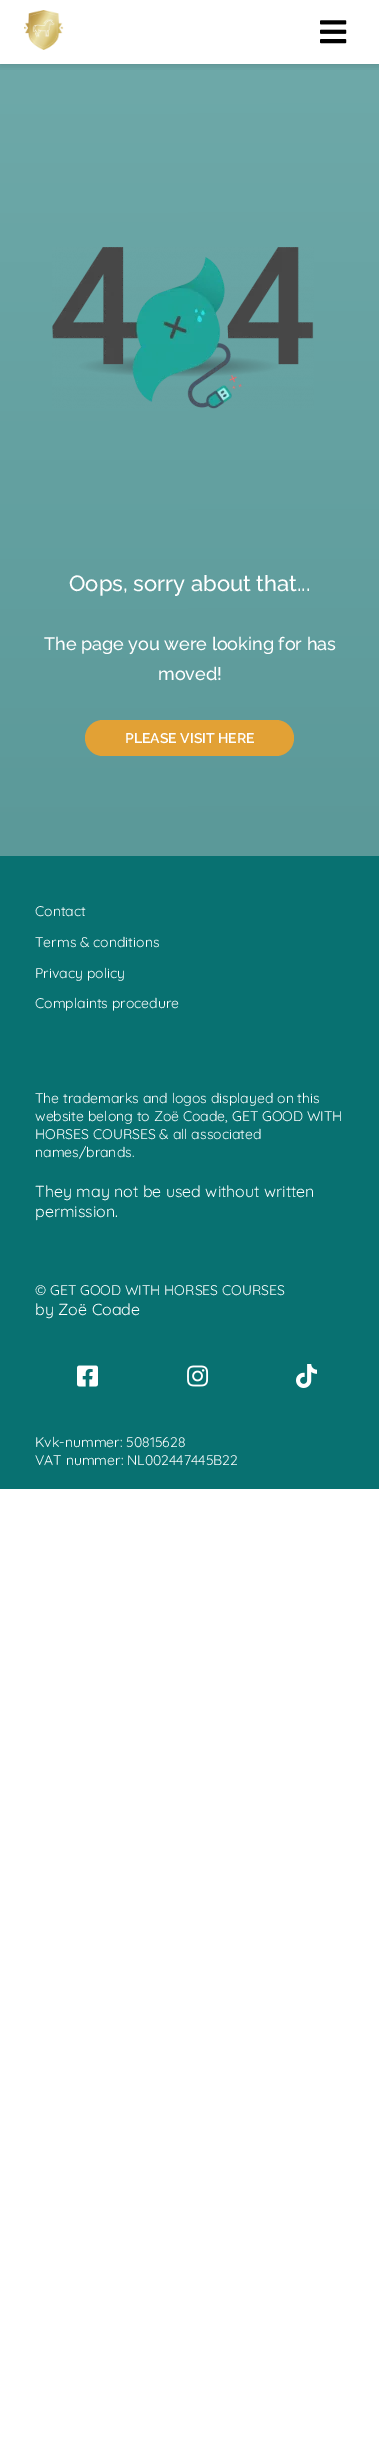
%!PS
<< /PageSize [379 2463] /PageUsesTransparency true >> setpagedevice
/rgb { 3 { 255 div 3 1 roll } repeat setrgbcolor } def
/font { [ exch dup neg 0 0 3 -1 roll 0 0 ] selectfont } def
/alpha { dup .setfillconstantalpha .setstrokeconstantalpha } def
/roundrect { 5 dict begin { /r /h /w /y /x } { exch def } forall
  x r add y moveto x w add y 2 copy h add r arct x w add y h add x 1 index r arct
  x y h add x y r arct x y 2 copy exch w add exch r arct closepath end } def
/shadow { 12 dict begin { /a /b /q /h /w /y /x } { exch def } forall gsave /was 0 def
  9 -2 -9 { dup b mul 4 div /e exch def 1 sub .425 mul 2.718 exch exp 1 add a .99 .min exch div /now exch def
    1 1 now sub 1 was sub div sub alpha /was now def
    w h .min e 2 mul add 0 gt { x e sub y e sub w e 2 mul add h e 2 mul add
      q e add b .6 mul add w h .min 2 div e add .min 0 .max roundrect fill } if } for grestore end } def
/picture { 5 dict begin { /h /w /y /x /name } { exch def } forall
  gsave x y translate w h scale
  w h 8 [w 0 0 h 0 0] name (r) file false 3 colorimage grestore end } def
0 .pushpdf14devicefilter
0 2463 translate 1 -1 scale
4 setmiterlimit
255 255 255 rgb
0 0 379 2463 rectfill
gsave 0 64 moveto 379 64 lineto 379 856 lineto 0 856 lineto closepath clip newpath
<< /ShadingType 2 /ColorSpace /DeviceRGB /Coords [189 64 190 856] /Extend [true true] /Function << /FunctionType 2 /Domain [0 1] /C0 [0.431 0.663 0.663] /C1 [0.357 0.6 0.6] /N 1 >> >> shfill grestore
gsave
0 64 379 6 rectclip
0 0 0 rgb
0 0 379 64 0 5 0.2 shadow
grestore
(img/1.rgb) 24 10 40 40 picture
(img/2.rgb) 320 20 27 24 picture
(img/3.rgb) 52 247 262 162 picture
226 161 53 rgb
85 720 209 36 18 roundrect fill
8 113 113 rgb
0 856 379 633 rectfill
(img/4.rgb) 77 1365 21 22 picture
(img/5.rgb) 187 1365 22 22 picture
(img/6.rgb) 296 1364 21 24 picture
/Raleway-Medium 22 font
255 255 255 rgb
69 591 moveto (Oops, sorry about that...) show
/Raleway-Medium 18 font
44 650 moveto (The page you were looking for has) show
158 680 moveto (moved!) show
/Raleway-SemiBold 14 font
125 743 moveto (PLEASE VISIT HERE) show
/Quicksand-Regular 14 font
[
  [(Contact) 35 916]
  [(Terms & conditions) 35 947]
  [(Privacy policy) 35 978]
  [(Complaints procedure) 35 1008]
  [(The trademarks and logos displayed on this) 35 1103]
  [(website belong to Zoë Coade, GET GOOD WITH) 35 1121]
  [(HORSES COURSES & all associated) 35 1139]
  [(names/brands.) 35 1157]
] { aload pop moveto show } forall
/Quicksand-Regular 16 font
35 1197 moveto (They may not be used without written) show
35 1217 moveto (permission.) show
/Quicksand-Regular 14 font
35 1295 moveto (© GET GOOD WITH HORSES COURSES) show
/Quicksand-Regular 16 font
35 1315 moveto (by Zoë Coade) show
/Quicksand-Regular 14 font
35 1447 moveto (Kvk-nummer: 50815628) show
35 1465 moveto (VAT nummer: NL002447445B22) show
.poppdf14devicefilter showpage
